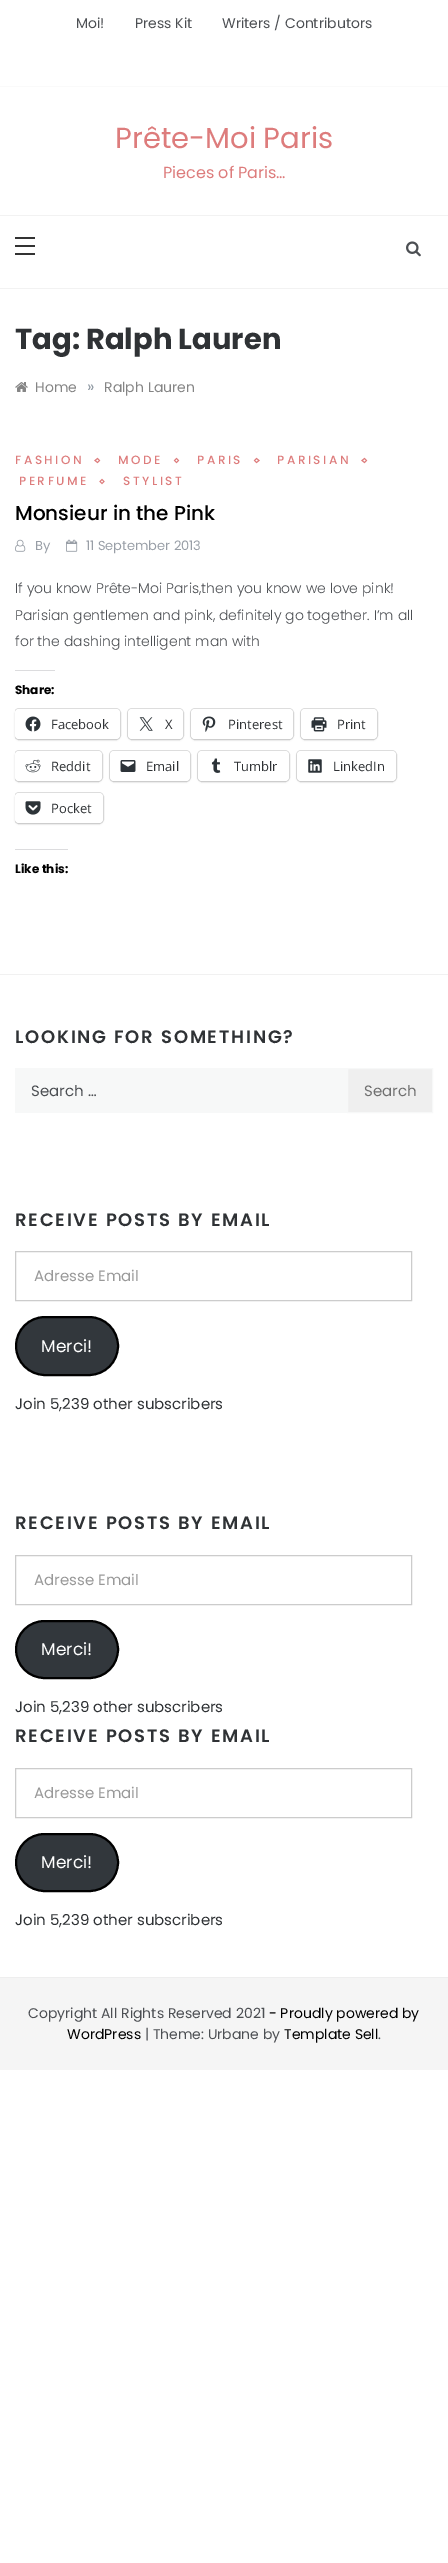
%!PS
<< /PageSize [448 2563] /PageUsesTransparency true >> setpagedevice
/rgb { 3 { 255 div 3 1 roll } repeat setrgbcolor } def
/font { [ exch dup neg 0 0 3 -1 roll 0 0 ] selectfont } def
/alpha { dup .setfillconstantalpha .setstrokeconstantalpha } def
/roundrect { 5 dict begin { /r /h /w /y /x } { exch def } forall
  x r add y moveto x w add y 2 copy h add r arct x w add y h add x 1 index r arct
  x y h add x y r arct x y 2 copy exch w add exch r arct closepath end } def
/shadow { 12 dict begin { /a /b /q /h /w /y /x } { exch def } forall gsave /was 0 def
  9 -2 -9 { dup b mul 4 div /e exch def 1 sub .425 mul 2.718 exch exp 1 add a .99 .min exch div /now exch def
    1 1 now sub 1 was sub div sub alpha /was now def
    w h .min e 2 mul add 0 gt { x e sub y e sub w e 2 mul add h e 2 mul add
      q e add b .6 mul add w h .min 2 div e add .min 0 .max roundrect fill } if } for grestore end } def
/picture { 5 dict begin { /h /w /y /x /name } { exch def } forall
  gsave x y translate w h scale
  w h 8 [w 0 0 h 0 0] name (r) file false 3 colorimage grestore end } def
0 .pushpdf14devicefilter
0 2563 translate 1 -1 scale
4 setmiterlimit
255 255 255 rgb
0 0 448 2563 rectfill
[
  [0 86 448 1 250 250 250]
  [0 288 448 1 242 242 242]
  [0 215 448 1 242 242 242]
  [15 237 20 2 51 51 51]
  [15 245 20 2 51 51 51]
  [15 253 20 2 51 51 51]
] { aload pop rgb rectfill } forall
(img/1.rgb) 406 241 15 16 picture
(img/2.rgb) 15 382 13 10 picture
221 124 124 rgb
97.5 458.5 moveto 99.5 460.5 lineto 97.5 462.5 lineto 95 460.5 lineto closepath stroke
176.5 458.5 moveto 178.5 460.5 lineto 176.5 462.5 lineto 174.5 460.5 lineto closepath stroke
256.5 458.5 moveto 259 460.5 lineto 256.5 462.5 lineto 254.5 460.5 lineto closepath stroke
364.5 458.5 moveto 366.5 460.5 lineto 364.5 462.5 lineto 362 460.5 lineto closepath stroke
102 479.5 moveto 104 481.5 lineto 102 483.5 lineto 100 481.5 lineto closepath stroke
(img/3.rgb) 15 539 11 13 picture
(img/4.rgb) 66 539 12 13 picture
220 220 222 rgb
15 670 40 1 rectfill
gsave
15 428 418 516 rectclip
224 224 224 rgb
14.5 708.5 106 31 4.5 roundrect stroke
grestore
0 0 0 rgb
15 710 105 30 4 1 0.12 shadow
255 255 255 rgb
15 709 105 30 4 roundrect fill
(img/5.rgb) 25 716 16 16 picture
224 224 224 rgb
127.5 708.5 56 31 4.5 roundrect stroke
0 0 0 rgb
128 710 55 30 4 1 0.12 shadow
255 255 255 rgb
128 709 55 30 4 roundrect fill
(img/6.rgb) 139 717 14 14 picture
224 224 224 rgb
190.5 708.5 103 31 4.5 roundrect stroke
0 0 0 rgb
191 710 102 30 4 1 0.12 shadow
255 255 255 rgb
191 709 102 30 4 roundrect fill
(img/7.rgb) 202 716 14 16 picture
224 224 224 rgb
300.5 708.5 77 31 4.5 roundrect stroke
0 0 0 rgb
301 710 76 30 4 1 0.12 shadow
255 255 255 rgb
301 709 76 30 4 roundrect fill
(img/8.rgb) 311 717 16 15 picture
gsave
15 428 418 516 rectclip
224 224 224 rgb
14.5 750.5 88 31 4.5 roundrect stroke
grestore
0 0 0 rgb
15 752 87 30 4 1 0.12 shadow
255 255 255 rgb
15 751 87 30 4 roundrect fill
(img/9.rgb) 25 759 16 14 picture
224 224 224 rgb
109.5 750.5 81 31 4.5 roundrect stroke
0 0 0 rgb
110 752 80 30 4 1 0.12 shadow
255 255 255 rgb
110 751 80 30 4 roundrect fill
(img/10.rgb) 120 760 16 12 picture
224 224 224 rgb
197.5 750.5 92 31 4.5 roundrect stroke
0 0 0 rgb
198 752 91 30 4 1 0.12 shadow
255 255 255 rgb
198 751 91 30 4 roundrect fill
(img/11.rgb) 211 758 10 15 picture
224 224 224 rgb
296.5 750.5 100 31 4.5 roundrect stroke
0 0 0 rgb
297 752 99 30 4 1 0.12 shadow
255 255 255 rgb
297 751 99 30 4 roundrect fill
(img/12.rgb) 308 759 14 14 picture
gsave
15 428 418 516 rectclip
224 224 224 rgb
14.5 792.5 89 31 4.5 roundrect stroke
grestore
0 0 0 rgb
15 794 88 30 4 1 0.12 shadow
255 255 255 rgb
15 793 88 30 4 roundrect fill
(img/13.rgb) 25 801 16 14 picture
[
  [15 849 53 1 220 220 222]
  [0 974 448 1 241 241 241]
  [15 1068 332 45 247 248 248]
] { aload pop rgb rectfill } forall
239 239 239 rgb
347.5 1068.5 moveto 432.5 1068.5 lineto 432.5 1112.5 lineto 347.5 1112.5 lineto closepath gsave fill grestore
247 248 248 rgb
stroke
204 204 204 rgb
15.5 1251.5 396 49 rectstroke
50 55 60 rgb
16 1317 102 58 29 roundrect gsave fill grestore
0 0 0 rgb
2 setlinewidth
stroke
204 204 204 rgb
1 setlinewidth
15.5 1555.5 396 49 rectstroke
50 55 60 rgb
16 1621 102 57 28.5 roundrect gsave fill grestore
0 0 0 rgb
2 setlinewidth
stroke
204 204 204 rgb
1 setlinewidth
15.5 1768.5 396 49 rectstroke
50 55 60 rgb
16 1834 102 57 28.5 roundrect gsave fill grestore
0 0 0 rgb
2 setlinewidth
stroke
245 245 245 rgb
0 1978 448 92 rectfill
238 238 238 rgb
0 1977 448 1 rectfill
/Poppins-Regular 14 font
76 79 83 rgb
[
  [(Moi!) 76 28]
  [(Press Kit) 135 28]
  [(Writers / Contributors) 222 28]
] { aload pop moveto show } forall
/Poppins-Regular 29 font
221 124 124 rgb
115 148 moveto (Prête-Moi Paris) show
/Poppins-Regular 16 font
163 178 moveto (Pieces of Paris…) show
/Poppins-Bold 29 font
47 50 53 rgb
15 349 moveto (Tag: Ralph Lauren) show
/Poppins-Regular 14 font
133 133 133 rgb
35 392 moveto (Home) show
/Poppins-Regular 16 font
141 151 161 rgb
87 392 moveto (») show
/Poppins-Regular 14 font
133 133 133 rgb
104 392 moveto (Ralph Lauren) show
/Poppins-Medium 12 font
221 124 124 rgb
15 464 moveto 2.5 0 (FASHION) ashow
118 464 moveto 2.5 0 (MODE) ashow
197 464 moveto 2.5 0 (PARIS) ashow
277 464 moveto 2.5 0 (PARISIAN) ashow
19 485 moveto 2.5 0 (PERFUME) ashow
123 485 moveto 2.5 0 (STYLIST) ashow
/Poppins-Medium 20 font
0 0 0 rgb
15 520 moveto (Monsieur in the Pink) show
/Poppins-Regular 13 font
152 158 166 rgb
35 550 moveto (By) show
86 550 moveto (11 September 2013) show
/Poppins-Light 14 font
76 79 83 rgb
[
  [(If you know Prête-Moi Paris,then you know we love pink!) 15 593]
  [(Parisian gentlemen and pink, definitely go together. I’m all) 15 620]
  [(for the dashing intelligent man with) 15 646]
] { aload pop moveto show } forall
/Poppins-Bold 12 font
0 0 0 rgb
15 694 moveto (Share:) show
/OpenSans-Regular 13 font
47 50 53 rgb
[
  [(Facebook) 51 729]
  [(X) 165 729]
  [(Pinterest) 228 729]
  [(Print) 337 729]
  [(Reddit) 51 771]
  [(Email) 146 771]
  [(Tumblr) 234 771]
  [(LinkedIn) 333 771]
  [(Pocket) 51 813]
] { aload pop moveto show } forall
/Poppins-Bold 12 font
0 0 0 rgb
15 873 moveto (Like this:) show
/Poppins-SemiBold 18 font
47 50 53 rgb
15 1043 moveto 1.8 0 (LOOKING FOR SOMETHING?) ashow
/Poppins-Regular 15 font
76 79 83 rgb
31 1096 moveto (Search …) show
111 111 111 rgb
364 1096 moveto (Search) show
/Poppins-SemiBold 18 font
47 50 53 rgb
15 1226 moveto 1.8 0 (RECEIVE POSTS BY EMAIL) ashow
/Poppins-Regular 15 font
153 153 153 rgb
34 1281 moveto (Adresse Email) show
/Poppins-Regular 17 font
255 255 255 rgb
41 1352 moveto (Merci!) show
/Poppins-Regular 15 font
47 50 53 rgb
15 1409 moveto (Join 5,239 other subscribers) show
/Poppins-SemiBold 18 font
15 1529 moveto 1.8 0 (RECEIVE POSTS BY EMAIL) ashow
/Poppins-Regular 15 font
153 153 153 rgb
34 1585 moveto (Adresse Email) show
/Poppins-Regular 17 font
255 255 255 rgb
41 1655 moveto (Merci!) show
/Poppins-Regular 15 font
47 50 53 rgb
15 1712 moveto (Join 5,239 other subscribers) show
/Poppins-SemiBold 18 font
15 1742 moveto 1.8 0 (RECEIVE POSTS BY EMAIL) ashow
/Poppins-Regular 15 font
153 153 153 rgb
34 1798 moveto (Adresse Email) show
/Poppins-Regular 17 font
255 255 255 rgb
41 1868 moveto (Merci!) show
/Poppins-Regular 15 font
47 50 53 rgb
15 1925 moveto (Join 5,239 other subscribers) show
/Poppins-Regular 14 font
76 79 83 rgb
28 2018 moveto (Copyright All Rights Reserved 2021) show
0 0 0 rgb
269 2018 moveto (- Proudly powered by) show
67 2039 moveto (WordPress) show
76 79 83 rgb
145 2039 moveto (| Theme: Urbane by) show
0 0 0 rgb
284 2039 moveto (Template Sell) show
76 79 83 rgb
378 2039 moveto (.) show
.poppdf14devicefilter showpage
